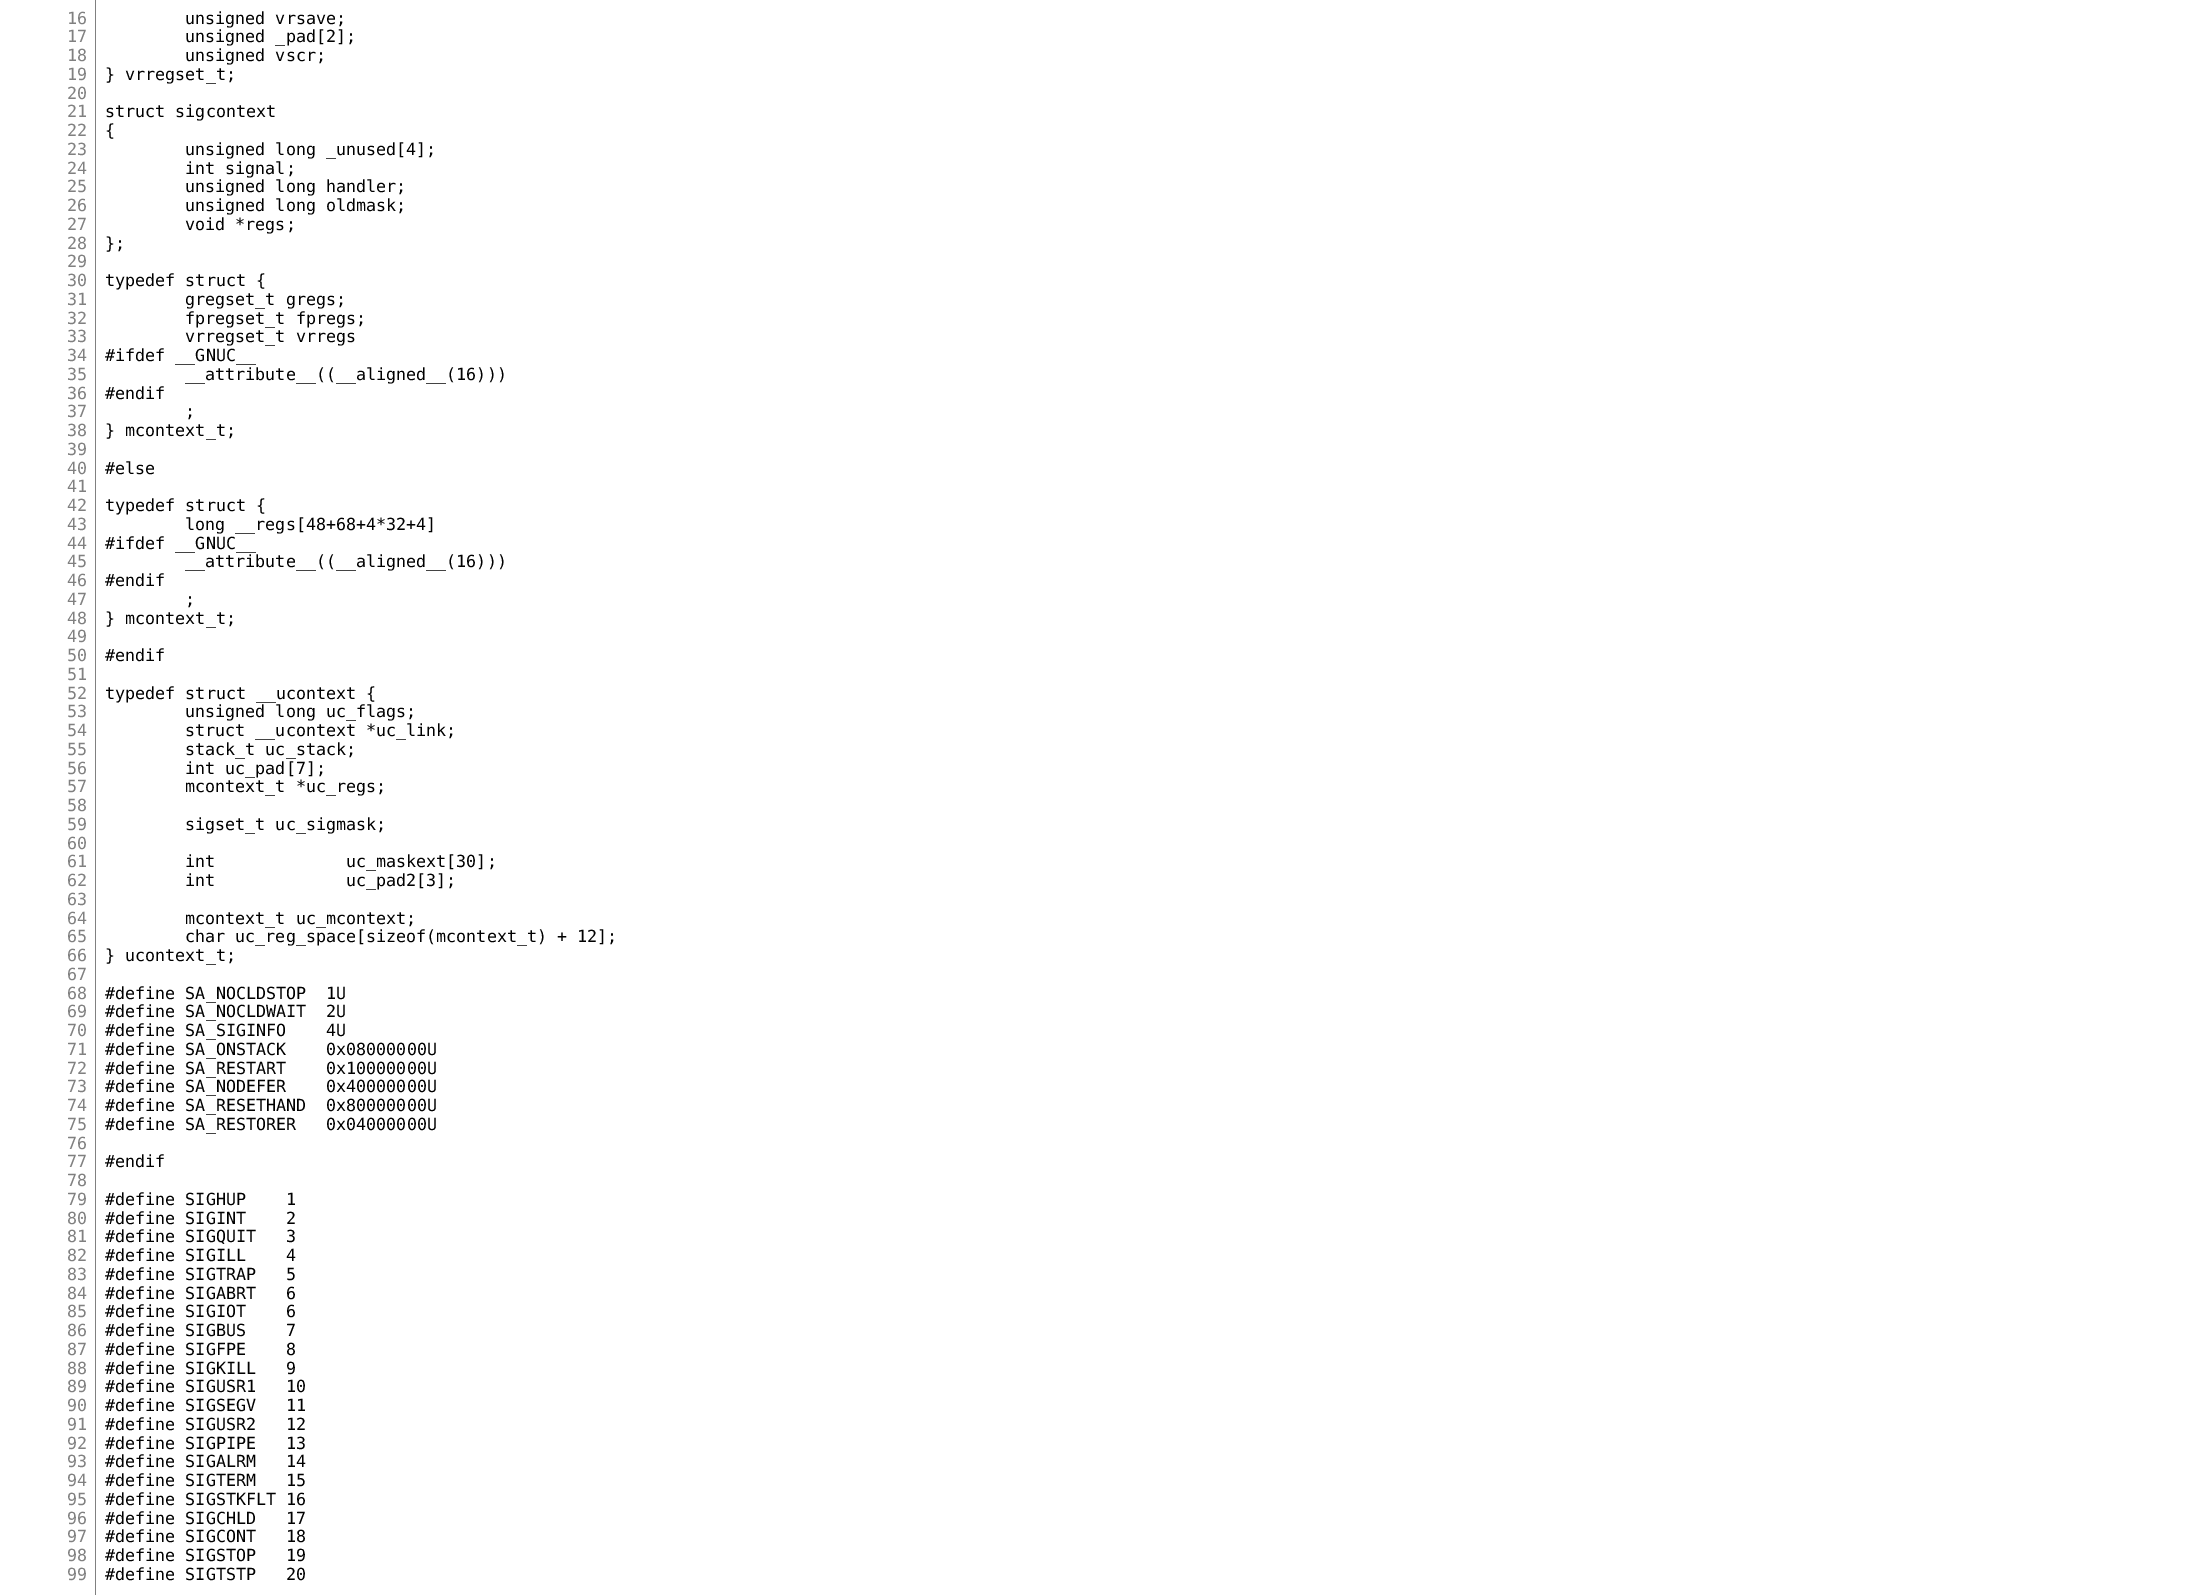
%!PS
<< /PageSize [2197 1595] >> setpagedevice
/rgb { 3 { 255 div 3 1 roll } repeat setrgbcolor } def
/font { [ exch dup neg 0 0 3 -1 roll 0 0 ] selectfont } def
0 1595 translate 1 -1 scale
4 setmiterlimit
255 255 255 rgb
0 0 2197 1595 rectfill
128 128 128 rgb
95 0 1 1595 rectfill
/DejaVuSansMono-Regular 16.7 font
[
  [(16) 67 24]
  [(17) 67 42]
  [(18) 67 61]
  [(19) 67 80]
  [(20) 67 99]
  [(21) 67 117]
  [(22) 67 136]
  [(23) 67 155]
  [(24) 67 174]
  [(25) 67 192]
  [(26) 67 211]
  [(27) 67 230]
  [(28) 67 249]
  [(29) 67 267]
  [(30) 67 286]
  [(31) 67 305]
  [(32) 67 324]
  [(33) 67 342]
  [(34) 67 361]
  [(35) 67 380]
  [(36) 67 399]
  [(37) 67 417]
  [(38) 67 436]
  [(39) 67 455]
  [(40) 67 474]
  [(41) 67 492]
  [(42) 67 511]
  [(43) 67 530]
  [(44) 67 549]
  [(45) 67 567]
  [(46) 67 586]
  [(47) 67 605]
  [(48) 67 624]
  [(49) 67 642]
  [(50) 67 661]
  [(51) 67 680]
  [(52) 67 699]
  [(53) 67 717]
  [(54) 67 736]
  [(55) 67 755]
  [(56) 67 774]
  [(57) 67 792]
  [(58) 67 811]
  [(59) 67 830]
  [(60) 67 849]
  [(61) 67 867]
  [(62) 67 886]
  [(63) 67 905]
  [(64) 67 924]
  [(65) 67 942]
  [(66) 67 961]
  [(67) 67 980]
  [(68) 67 999]
  [(69) 67 1017]
  [(70) 67 1036]
  [(71) 67 1055]
  [(72) 67 1074]
  [(73) 67 1092]
  [(74) 67 1111]
  [(75) 67 1130]
  [(76) 67 1149]
  [(77) 67 1167]
  [(78) 67 1186]
  [(79) 67 1205]
  [(80) 67 1224]
  [(81) 67 1242]
  [(82) 67 1261]
  [(83) 67 1280]
  [(84) 67 1299]
  [(85) 67 1317]
  [(86) 67 1336]
  [(87) 67 1355]
  [(88) 67 1374]
  [(89) 67 1392]
  [(90) 67 1411]
  [(91) 67 1430]
  [(92) 67 1449]
  [(93) 67 1467]
  [(94) 67 1486]
  [(95) 67 1505]
  [(96) 67 1524]
  [(97) 67 1542]
  [(98) 67 1561]
  [(99) 67 1580]
] { aload pop moveto show } forall
0 0 0 rgb
[
  [(unsigned vrsave;) 185 24]
  [(unsigned _pad[2];) 185 42]
  [(unsigned vscr;) 185 61]
  [(} vrregset_t;) 105 80]
  [(struct sigcontext) 105 117]
  [({) 105 136]
  [(unsigned long _unused[4];) 185 155]
  [(int signal;) 185 174]
  [(unsigned long handler;) 185 192]
  [(unsigned long oldmask;) 185 211]
  [(void *regs;) 185 230]
  [(};) 105 249]
  [(typedef struct {) 105 286]
  [(gregset_t gregs;) 185 305]
  [(fpregset_t fpregs;) 185 324]
  [(vrregset_t vrregs) 185 342]
  [(#ifdef __GNUC__) 105 361]
  [(__attribute__\(\(__aligned__\(16\)\)\)) 185 380]
  [(#endif) 105 399]
  [(;) 185 417]
  [(} mcontext_t;) 105 436]
  [(#else) 105 474]
  [(typedef struct {) 105 511]
  [(long __regs[48+68+4*32+4]) 185 530]
  [(#ifdef __GNUC__) 105 549]
  [(__attribute__\(\(__aligned__\(16\)\)\)) 185 567]
  [(#endif) 105 586]
  [(;) 185 605]
  [(} mcontext_t;) 105 624]
  [(#endif) 105 661]
  [(typedef struct __ucontext {) 105 699]
  [(unsigned long uc_flags;) 185 717]
  [(struct __ucontext *uc_link;) 185 736]
  [(stack_t uc_stack;) 185 755]
  [(int uc_pad[7];) 185 774]
  [(mcontext_t *uc_regs;) 185 792]
  [(sigset_t uc_sigmask;) 185 830]
  [(int             uc_maskext[30];) 185 867]
  [(int             uc_pad2[3];) 185 886]
  [(mcontext_t uc_mcontext;) 185 924]
  [(char uc_reg_space[sizeof\(mcontext_t\) + 12];) 185 942]
  [(} ucontext_t;) 105 961]
  [(#define SA_NOCLDSTOP  1U) 105 999]
  [(#define SA_NOCLDWAIT  2U) 105 1017]
  [(#define SA_SIGINFO    4U) 105 1036]
  [(#define SA_ONSTACK    0x08000000U) 105 1055]
  [(#define SA_RESTART    0x10000000U) 105 1074]
  [(#define SA_NODEFER    0x40000000U) 105 1092]
  [(#define SA_RESETHAND  0x80000000U) 105 1111]
  [(#define SA_RESTORER   0x04000000U) 105 1130]
  [(#endif) 105 1167]
  [(#define SIGHUP    1) 105 1205]
  [(#define SIGINT    2) 105 1224]
  [(#define SIGQUIT   3) 105 1242]
  [(#define SIGILL    4) 105 1261]
  [(#define SIGTRAP   5) 105 1280]
  [(#define SIGABRT   6) 105 1299]
  [(#define SIGIOT    6) 105 1317]
  [(#define SIGBUS    7) 105 1336]
  [(#define SIGFPE    8) 105 1355]
  [(#define SIGKILL   9) 105 1374]
  [(#define SIGUSR1   10) 105 1392]
  [(#define SIGSEGV   11) 105 1411]
  [(#define SIGUSR2   12) 105 1430]
  [(#define SIGPIPE   13) 105 1449]
  [(#define SIGALRM   14) 105 1467]
  [(#define SIGTERM   15) 105 1486]
  [(#define SIGSTKFLT 16) 105 1505]
  [(#define SIGCHLD   17) 105 1524]
  [(#define SIGCONT   18) 105 1542]
  [(#define SIGSTOP   19) 105 1561]
  [(#define SIGTSTP   20) 105 1580]
] { aload pop moveto show } forall
showpage
